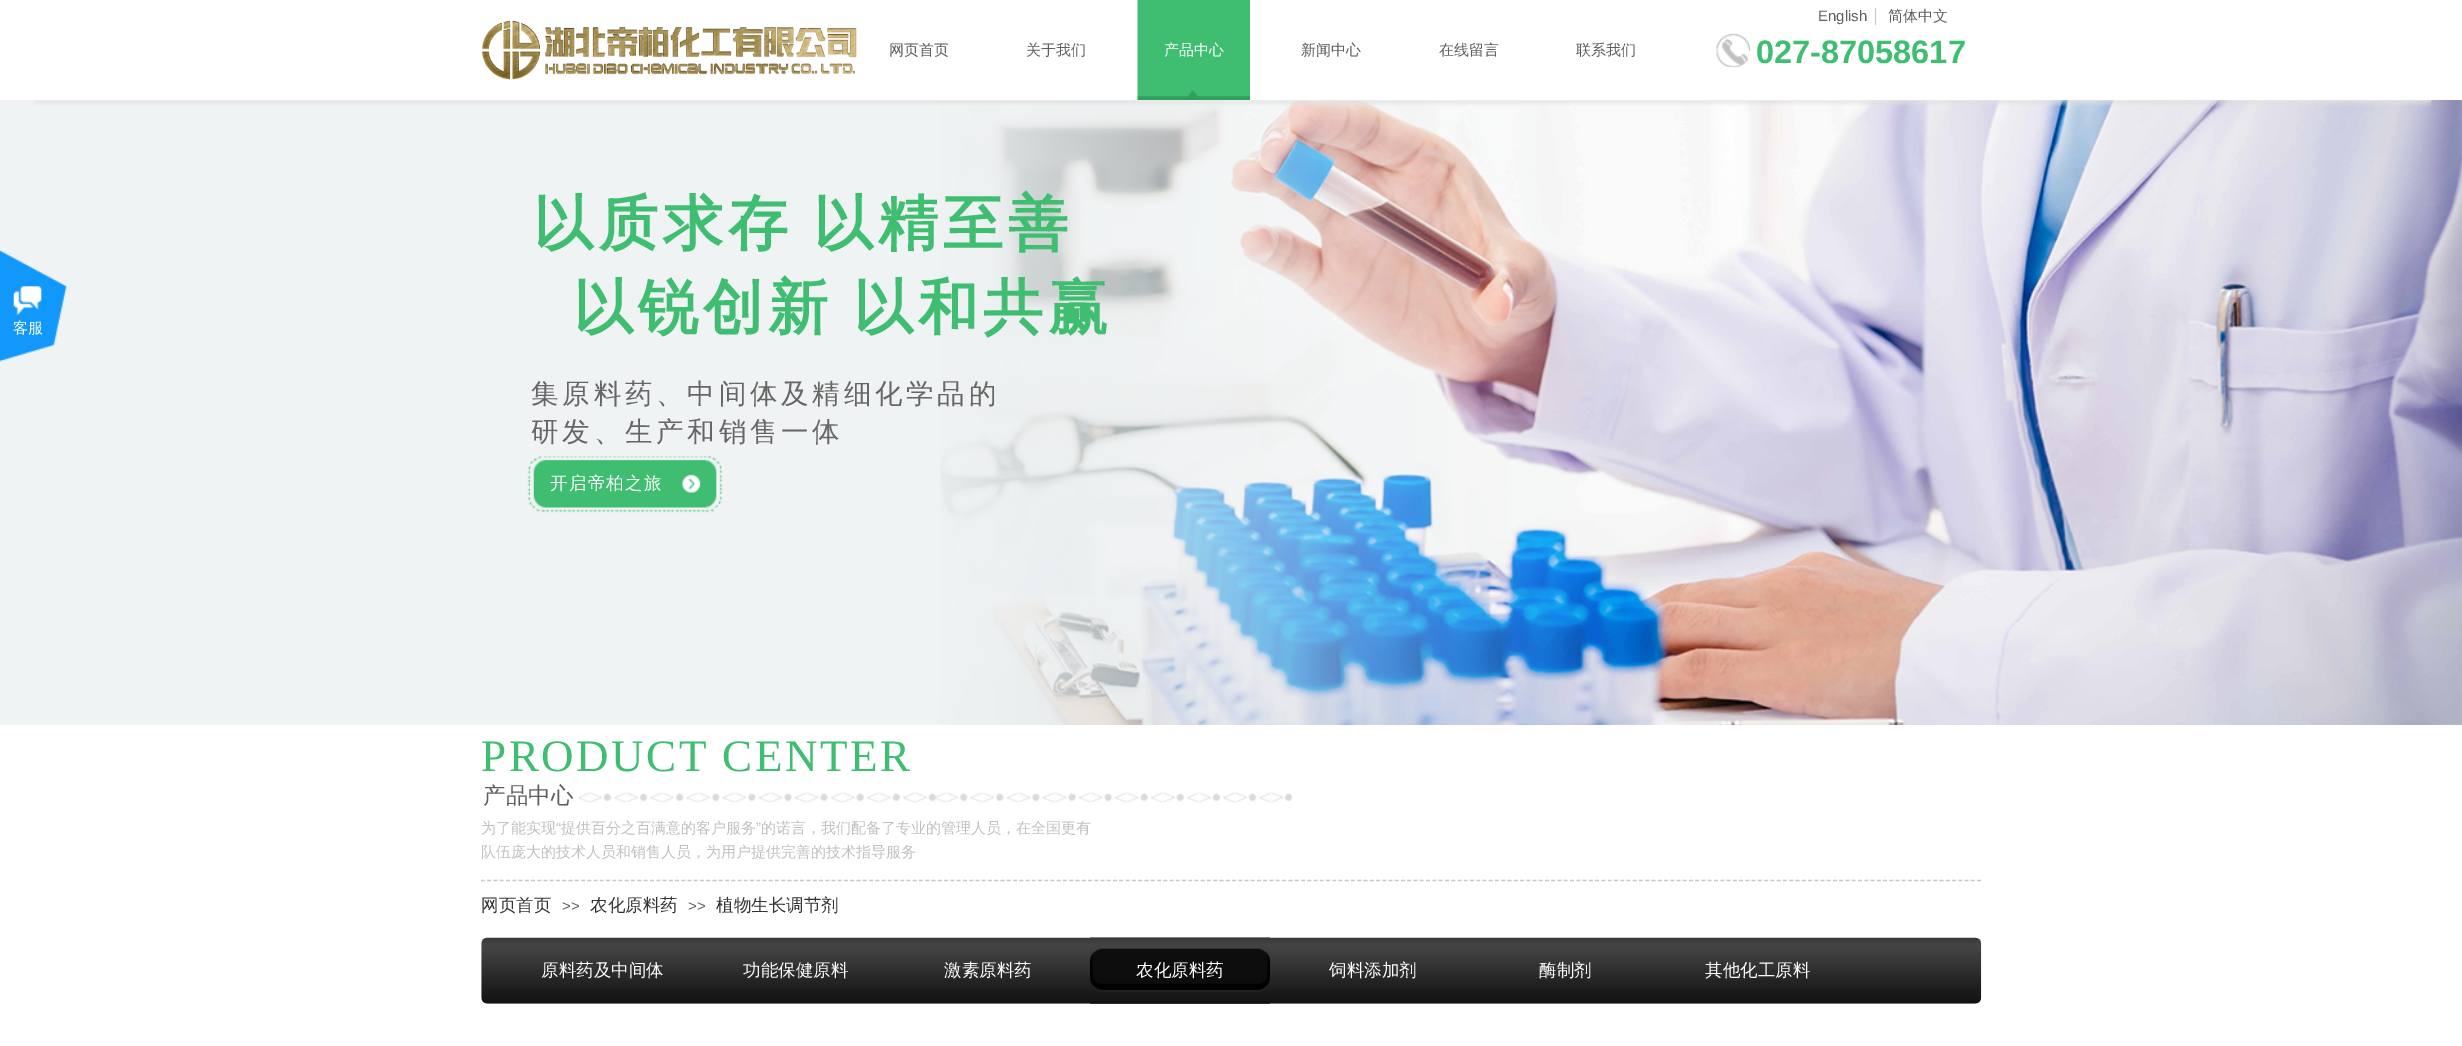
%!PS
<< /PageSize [2462 1046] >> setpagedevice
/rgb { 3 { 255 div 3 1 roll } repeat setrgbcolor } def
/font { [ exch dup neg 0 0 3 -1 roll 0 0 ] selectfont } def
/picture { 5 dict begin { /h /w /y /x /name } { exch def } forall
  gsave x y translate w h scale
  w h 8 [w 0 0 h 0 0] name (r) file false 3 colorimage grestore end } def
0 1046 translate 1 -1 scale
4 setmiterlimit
255 255 255 rgb
0 0 2462 1046 rectfill
(img/7.rgb) 0 100 2462 625 picture
(img/1.rgb) 0 250 67 112 picture
(img/2.rgb) 1875 7 2 18 picture
(img/3.rgb) 482 20 375 60 picture
(img/4.rgb) 1137 0 113 100 picture
(img/5.rgb) 1716 33 34 35 picture
(img/6.rgb) 33 100 2399 6 picture
(img/8.rgb) 527 456 196 57 picture
(img/9.rgb) 579 792 714 11 picture
201 201 201 rgb
1.2 setlinewidth
[3.75 2.51] 0 setdash
481 880.5 moveto 1981 880.5 lineto stroke
(img/10.rgb) 481 937 1501 67 picture
(img/11.rgb) 1090 937 180 67 picture
/WenQuanYiZenHei-Medium 15 font
255 255 255 rgb
13 333 moveto (客服) show
/LiberationSans-Regular 15 font
94 94 94 rgb
1818 21 moveto (English) show
/WenQuanYiZenHei-Medium 15 font
[
  [(简体中文) 1888 21]
  [(网页首页) 889 55]
  [(关于我们) 1026 55]
] { aload pop moveto show } forall
255 255 255 rgb
1164 55 moveto (产品中心) show
94 94 94 rgb
[
  [(新闻中心) 1301 55]
  [(在线留言) 1439 55]
  [(联系我们) 1576 55]
] { aload pop moveto show } forall
/LiberationSans-Bold 32.5 font
63 190 114 rgb
1756 63 moveto (027-87058617) show
/WenQuanYiZenHei-Bold 60 font
533 244 moveto -3 0 32 5 0 (以质求存 以精至善) awidthshow
573 328 moveto -3 0 32 5 0 (以锐创新 以和共赢) awidthshow
/WenQuanYiZenHei-Medium 27.5 font
102 102 102 rgb
531 403 moveto 3.75 0 (集原料药、中间体及精细化学品的) ashow
531 441 moveto 3.75 0 (研发、生产和销售一体) ashow
/WenQuanYiZenHei-Medium 17.5 font
255 255 255 rgb
550 489 moveto 1.25 0 (开启帝柏之旅) ashow
/LiberationSerif-Regular 45 font
63 190 114 rgb
481 771 moveto 2.5 0 (PRODUCT CENTER) ashow
/WenQuanYiZenHei-Medium 22.5 font
94 94 94 rgb
483 803 moveto (产品中心) show
/WenQuanYiZenHei-Medium 15 font
192 192 192 rgb
481 833 moveto (为了能实现) show
/LiberationSans-Regular 15 font
556 833 moveto (“) show
/WenQuanYiZenHei-Medium 15 font
561 833 moveto (提供百分之百满意的客户服务) show
/LiberationSans-Regular 15 font
756 833 moveto (”) show
/WenQuanYiZenHei-Medium 15 font
761 833 moveto (的诺言，我们配备了专业的管理人员，在全国更有) show
481 857 moveto (队伍庞大的技术人员和销售人员，为用户提供完善的技术指导服务) show
/WenQuanYiZenHei-Medium 17.5 font
51 51 51 rgb
481 911 moveto (网页首页) show
/LiberationSans-Regular 15 font
94 94 94 rgb
562 911 moveto (>>) show
/WenQuanYiZenHei-Medium 17.5 font
51 51 51 rgb
590 911 moveto (农化原料药) show
/LiberationSans-Regular 15 font
94 94 94 rgb
688 911 moveto (>>) show
/WenQuanYiZenHei-Medium 17.5 font
51 51 51 rgb
716 911 moveto (植物生长调节剂) show
255 255 255 rgb
[
  [(原料药及中间体) 541 976]
  [(功能保健原料) 743 976]
  [(激素原料药) 944 976]
  [(农化原料药) 1136 976]
  [(饲料添加剂) 1329 976]
  [(酶制剂) 1539 976]
  [(其他化工原料) 1705 976]
] { aload pop moveto show } forall
showpage
